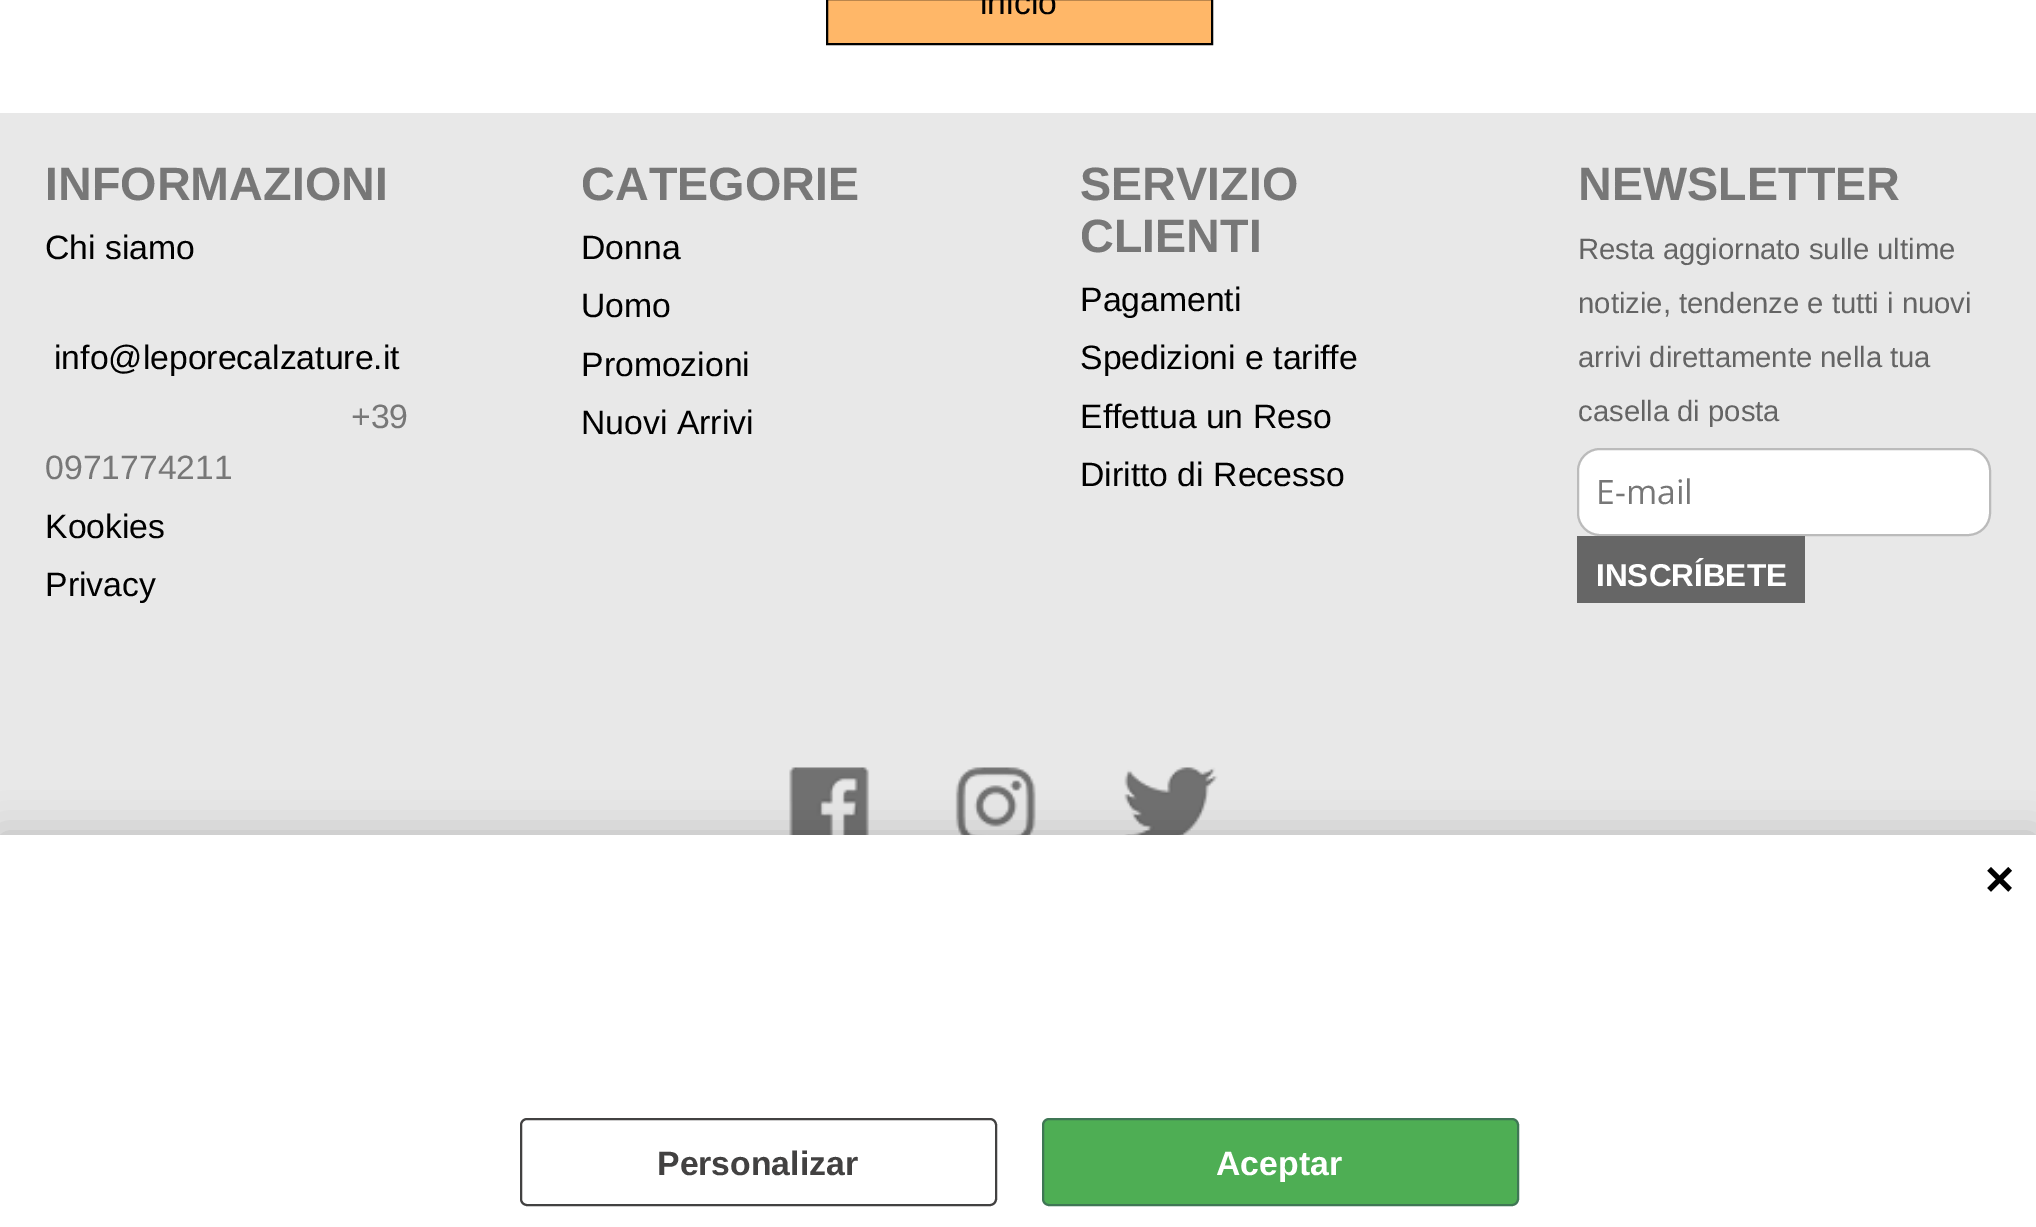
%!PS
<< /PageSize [2036 1227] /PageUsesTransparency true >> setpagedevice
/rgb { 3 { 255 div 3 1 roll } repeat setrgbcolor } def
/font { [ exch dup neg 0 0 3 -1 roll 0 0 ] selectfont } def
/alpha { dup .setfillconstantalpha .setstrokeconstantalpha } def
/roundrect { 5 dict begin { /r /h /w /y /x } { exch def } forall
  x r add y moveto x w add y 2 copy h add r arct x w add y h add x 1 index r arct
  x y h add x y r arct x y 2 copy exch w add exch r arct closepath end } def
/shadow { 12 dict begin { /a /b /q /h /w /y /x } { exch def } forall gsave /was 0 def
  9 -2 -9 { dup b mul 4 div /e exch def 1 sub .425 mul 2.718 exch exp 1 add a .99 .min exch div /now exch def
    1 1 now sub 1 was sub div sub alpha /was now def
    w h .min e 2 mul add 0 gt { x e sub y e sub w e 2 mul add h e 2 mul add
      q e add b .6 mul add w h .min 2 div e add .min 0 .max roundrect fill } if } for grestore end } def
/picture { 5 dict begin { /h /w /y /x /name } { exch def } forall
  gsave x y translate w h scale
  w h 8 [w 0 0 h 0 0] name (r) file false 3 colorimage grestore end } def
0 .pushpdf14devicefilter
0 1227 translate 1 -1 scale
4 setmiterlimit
255 255 255 rgb
0 0 2036 1227 rectfill
255 183 104 rgb
827 -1 moveto 1212 -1 lineto 1212 44 lineto 827 44 lineto closepath gsave fill grestore
0 0 0 rgb
2 setlinewidth
stroke
232 232 232 rgb
0 113 2036 722 rectfill
255 255 255 rgb
1578 449 412 86 22 roundrect gsave fill grestore
187 187 187 rgb
stroke
102 102 102 rgb
1577 536 228 67 rectfill
(img/1.rgb) 789 767 81 68 picture
(img/2.rgb) 955 767 81 68 picture
(img/3.rgb) 1124 767 94 68 picture
0 0 0 rgb
0 835 2036 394 0 20 0.2 shadow
255 255 255 rgb
0 835 2036 392 rectfill
66 65 65 rgb
521 1119 475 86 6 roundrect stroke
78 174 84 rgb
1043 1119 475 86 6 roundrect gsave fill grestore
63 119 85 rgb
stroke
/LiberationSans-Regular 33.75 font
0 0 0 rgb
980 14 moveto (inicio) show
/LiberationSans-Bold 46.75 font
119 119 119 rgb
45 200 moveto (INFORMAZIONI) show
/LiberationSans-Regular 33.75 font
0 0 0 rgb
45 259 moveto (Chi siamo) show
54 369 moveto (info@leporecalzature.it) show
119 119 119 rgb
351 428 moveto (+39) show
45 479 moveto (0971774211) show
0 0 0 rgb
45 538 moveto (Kookies) show
45 596 moveto (Privacy) show
/LiberationSans-Bold 46.75 font
119 119 119 rgb
581 200 moveto (CATEGORIE) show
/LiberationSans-Regular 33.75 font
0 0 0 rgb
[
  [(Donna) 581 259]
  [(Uomo) 581 317]
  [(Promozioni) 581 376]
  [(Nuovi Arrivi) 581 434]
] { aload pop moveto show } forall
/LiberationSans-Bold 46.75 font
119 119 119 rgb
1080 200 moveto (SERVIZIO) show
1080 252 moveto (CLIENTI) show
/LiberationSans-Regular 33.75 font
0 0 0 rgb
[
  [(Pagamenti) 1080 311]
  [(Spedizioni e tariffe) 1080 369]
  [(Effettua un Reso) 1080 428]
  [(Diritto di Recesso) 1080 486]
] { aload pop moveto show } forall
/LiberationSans-Bold 46.75 font
119 119 119 rgb
1578 200 moveto (NEWSLETTER) show
/LiberationSans-Regular 29.25 font
100 100 100 rgb
[
  [(Resta aggiornato sulle ultime) 1578 259]
  [(notizie, tendenze e tutti i nuovi) 1578 313]
  [(arrivi direttamente nella tua) 1578 367]
  [(casella di posta) 1578 421]
] { aload pop moveto show } forall
/OpenSans-Regular 33.75 font
119 119 119 rgb
1596 504 moveto (E-mail) show
/LiberationSans-Bold 31.5 font
255 255 255 rgb
1596 586 moveto (INSCRÍBETE) show
/LiberationSans-Bold 50 font
0 0 0 rgb
1985 896 moveto (×) show
/LiberationSans-Bold 33.75 font
66 65 65 rgb
657 1175 moveto (Personalizar) show
255 255 255 rgb
1216 1175 moveto (Aceptar) show
.poppdf14devicefilter showpage
